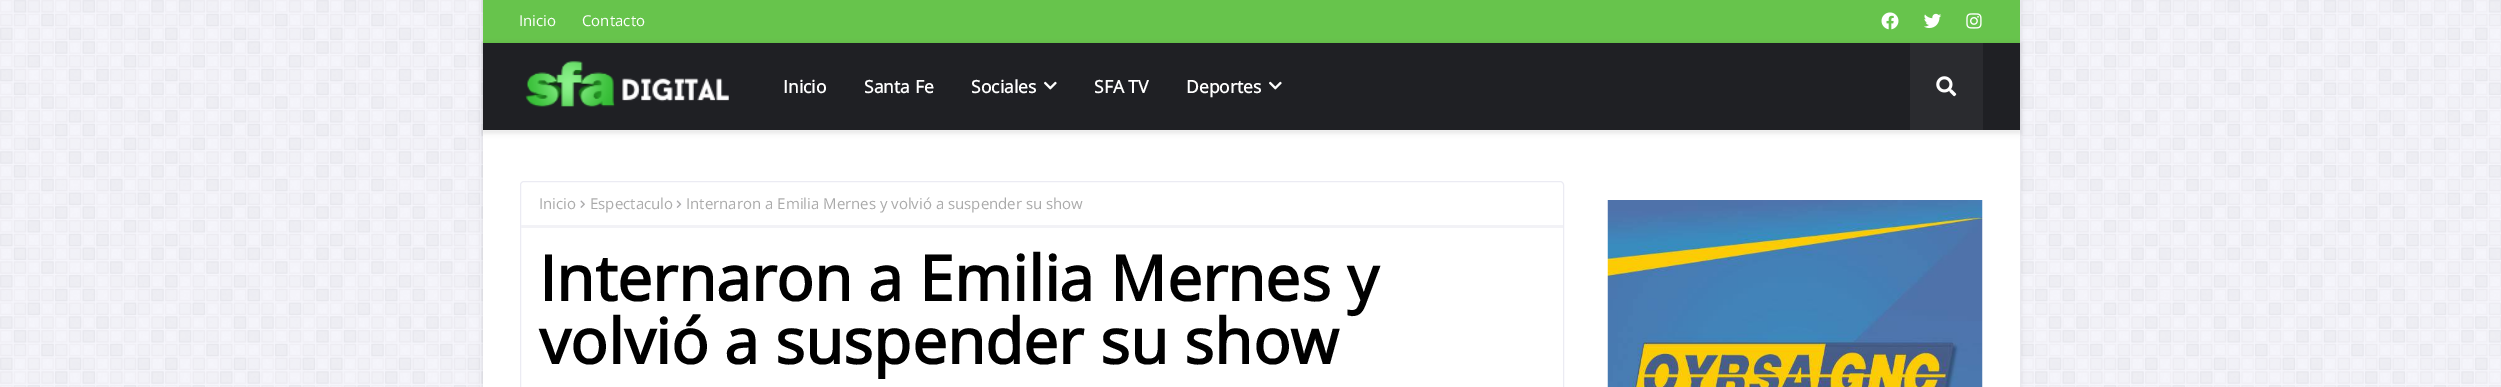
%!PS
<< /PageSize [2501 387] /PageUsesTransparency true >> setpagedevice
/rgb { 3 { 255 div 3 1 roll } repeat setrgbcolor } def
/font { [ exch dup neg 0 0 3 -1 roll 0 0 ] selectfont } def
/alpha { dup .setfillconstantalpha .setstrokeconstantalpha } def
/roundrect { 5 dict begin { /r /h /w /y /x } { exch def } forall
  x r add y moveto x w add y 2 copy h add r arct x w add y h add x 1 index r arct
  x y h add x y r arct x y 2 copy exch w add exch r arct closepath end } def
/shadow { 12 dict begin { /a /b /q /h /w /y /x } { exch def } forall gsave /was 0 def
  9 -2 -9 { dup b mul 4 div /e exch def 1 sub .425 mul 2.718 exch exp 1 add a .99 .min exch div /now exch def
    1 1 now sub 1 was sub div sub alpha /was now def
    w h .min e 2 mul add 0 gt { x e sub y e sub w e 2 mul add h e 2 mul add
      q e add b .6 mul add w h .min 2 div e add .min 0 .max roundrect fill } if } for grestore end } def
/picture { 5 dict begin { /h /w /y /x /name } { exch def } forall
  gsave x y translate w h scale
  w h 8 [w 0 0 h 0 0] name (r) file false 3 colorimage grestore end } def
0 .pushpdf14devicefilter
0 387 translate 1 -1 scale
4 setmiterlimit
247 247 255 rgb
0 0 2501 387 rectfill
(img/1.rgb) 0 0 2501 387 picture
0 0 0 rgb
483 0 1537 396 0 3 0.1 shadow
255 255 255 rgb
483 131 1537 256 rectfill
103 196 76 rgb
483 0 1537 43 rectfill
(img/2.rgb) 1881 12 18 18 picture
(img/3.rgb) 1924 13 18 16 picture
(img/4.rgb) 1966 13 16 16 picture
0 0 0 rgb
483 44 1537 89 0 2.5 0.1 shadow
31 32 36 rgb
483 43 1537 87 rectfill
238 238 238 rgb
483 130 1537 1 rectfill
(img/5.rgb) 525 61 204 46 picture
(img/6.rgb) 1044 81 13 9 picture
(img/6.rgb) 1269 81 13 9 picture
42 43 47 rgb
1910 43 73 87 rectfill
(img/7.rgb) 1936 76 21 21 picture
235 235 243 rgb
520.5 181.5 1043 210 3.5 roundrect stroke
242 242 246 rgb
521 225 1042 3 rectfill
(img/8.rgb) 580 200 5 8 picture
(img/9.rgb) 676 200 6 8 picture
(img/10.rgb) 1607 200 376 187 picture
/OpenSans-Regular 15 font
255 255 255 rgb
519 26 moveto (Inicio) show
582 26 moveto (Contacto) show
/OpenSans-Bold 17.5 font
[
  [(Inicio) 783 93]
  [(Santa Fe) 864 93]
  [(Sociales) 971 93]
  [(SFA TV) 1094 93]
  [(Deportes) 1186 93]
] { aload pop moveto show } forall
/OpenSans-Regular 15 font
170 170 170 rgb
[
  [(Inicio) 539 209]
  [(Espectaculo) 590 209]
  [(Internaron a Emilia Mernes y volvió a suspender su show) 686 209]
] { aload pop moveto show } forall
/OpenSans-Bold 62.5 font
0 0 0 rgb
539 301 moveto (Internaron a Emilia Mernes y) show
539 364 moveto (volvió a suspender su show) show
.poppdf14devicefilter showpage
